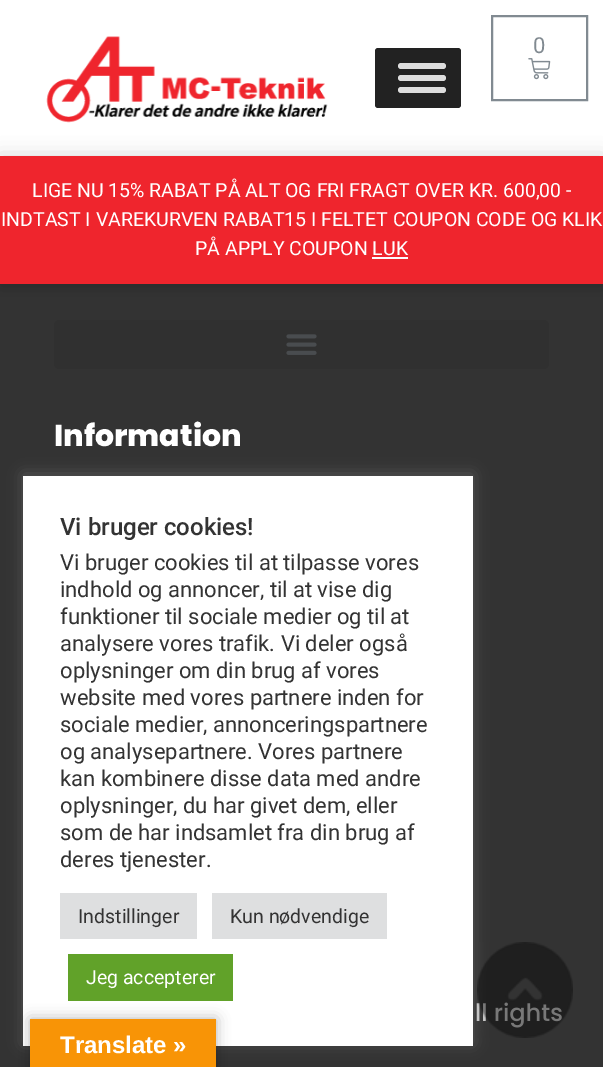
%!PS
<< /PageSize [603 1067] /PageUsesTransparency true >> setpagedevice
/rgb { 3 { 255 div 3 1 roll } repeat setrgbcolor } def
/font { [ exch dup neg 0 0 3 -1 roll 0 0 ] selectfont } def
/alpha { dup .setfillconstantalpha .setstrokeconstantalpha } def
/roundrect { 5 dict begin { /r /h /w /y /x } { exch def } forall
  x r add y moveto x w add y 2 copy h add r arct x w add y h add x 1 index r arct
  x y h add x y r arct x y 2 copy exch w add exch r arct closepath end } def
/shadow { 12 dict begin { /a /b /q /h /w /y /x } { exch def } forall gsave /was 0 def
  9 -2 -9 { dup b mul 4 div /e exch def 1 sub .425 mul 2.718 exch exp 1 add a .99 .min exch div /now exch def
    1 1 now sub 1 was sub div sub alpha /was now def
    w h .min e 2 mul add 0 gt { x e sub y e sub w e 2 mul add h e 2 mul add
      q e add b .6 mul add w h .min 2 div e add .min 0 .max roundrect fill } if } for grestore end } def
/picture { 5 dict begin { /h /w /y /x /name } { exch def } forall
  gsave x y translate w h scale
  w h 8 [w 0 0 h 0 0] name (r) file false 3 colorimage grestore end } def
0 .pushpdf14devicefilter
0 1067 translate 1 -1 scale
4 setmiterlimit
51 51 51 rgb
0 0 603 1067 rectfill
255 255 255 rgb
0 0 603 156 rectfill
(img/1.rgb) 46 36 282 87 picture
129 138 145 rgb
2 setlinewidth
492 16 95 84 rectstroke
(img/2.rgb) 528 58 23 22 picture
34 34 34 rgb
375 48 86 60 3 roundrect fill
221 221 221 rgb
398 63 48 6 3 roundrect fill
398 75 48 6 3 roundrect fill
398 87 48 6 3 roundrect fill
0 0 0 rgb
0 158 603 127 0 10 0.2 shadow
239 37 45 rgb
0 156 603 128 rectfill
252 251 254 rgb
372 257 36 2 rectfill
48 48 48 rgb
54 320 495 49 5 roundrect fill
(img/3.rgb) 286 334 31 21 picture
172 171 171 rgb
23 474 450 570 0 7.5 0.3 shadow
[
  [23 476 450 570 255 255 255]
  [60 893 137 46 222 223 224]
  [212 893 175 46 222 223 224]
  [68 954 165 47 97 162 41]
] { aload pop rgb rectfill } forall
0 0 0 rgb
30 1019 186 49 0 7 0.3 shadow
248 148 6 rgb
30 1019 186 48 rectfill
/Roboto-Regular 22 font
129 138 145 rgb
533 53 moveto (0) show
/Roboto-Regular 19.5 font
255 255 255 rgb
[
  [(LIGE NU 15% RABAT PÅ ALT OG FRI FRAGT OVER KR. 600,00 -) 32 197]
  [(INDTAST I VAREKURVEN RABAT15 I FELTET COUPON CODE OG KLIK) 1 226]
  [(PÅ APPLY COUPON LUK) 195 255]
] { aload pop moveto show } forall
/Poppins-ExtraBold 30 font
54 446 moveto (Information) show
/Poppins-Medium 24 font
200 200 200 rgb
475 1021 moveto (ll rights) show
/Roboto-Medium 24 font
51 51 51 rgb
60 535 moveto (Vi bruger cookies!) show
/Roboto-Regular 22 font
[
  [(Vi bruger cookies til at tilpasse vores) 60 570]
  [(indhold og annoncer, til at vise dig) 60 597]
  [(funktioner til sociale medier og til at) 60 624]
  [(analysere vores trafik. Vi deler også) 60 651]
  [(oplysninger om din brug af vores) 60 678]
  [(website med vores partnere inden for) 60 705]
  [(sociale medier, annonceringspartnere) 60 732]
  [(og analysepartnere. Vores partnere) 60 759]
  [(kan kombinere disse data med andre) 60 786]
  [(oplysninger, du har givet dem, eller) 60 813]
  [(som de har indsamlet fra din brug af) 60 840]
  [(deres tjenester.) 60 867]
] { aload pop moveto show } forall
/Roboto-Regular 19.5 font
78 923 moveto (Indstillinger) show
230 923 moveto (Kun nødvendige) show
255 255 255 rgb
86 984 moveto (Jeg accepterer) show
(img/4.rgb) 477 942 96 96 picture
/LiberationSans-Bold 24 font
60 1053 moveto (Translate ») show
.poppdf14devicefilter showpage
